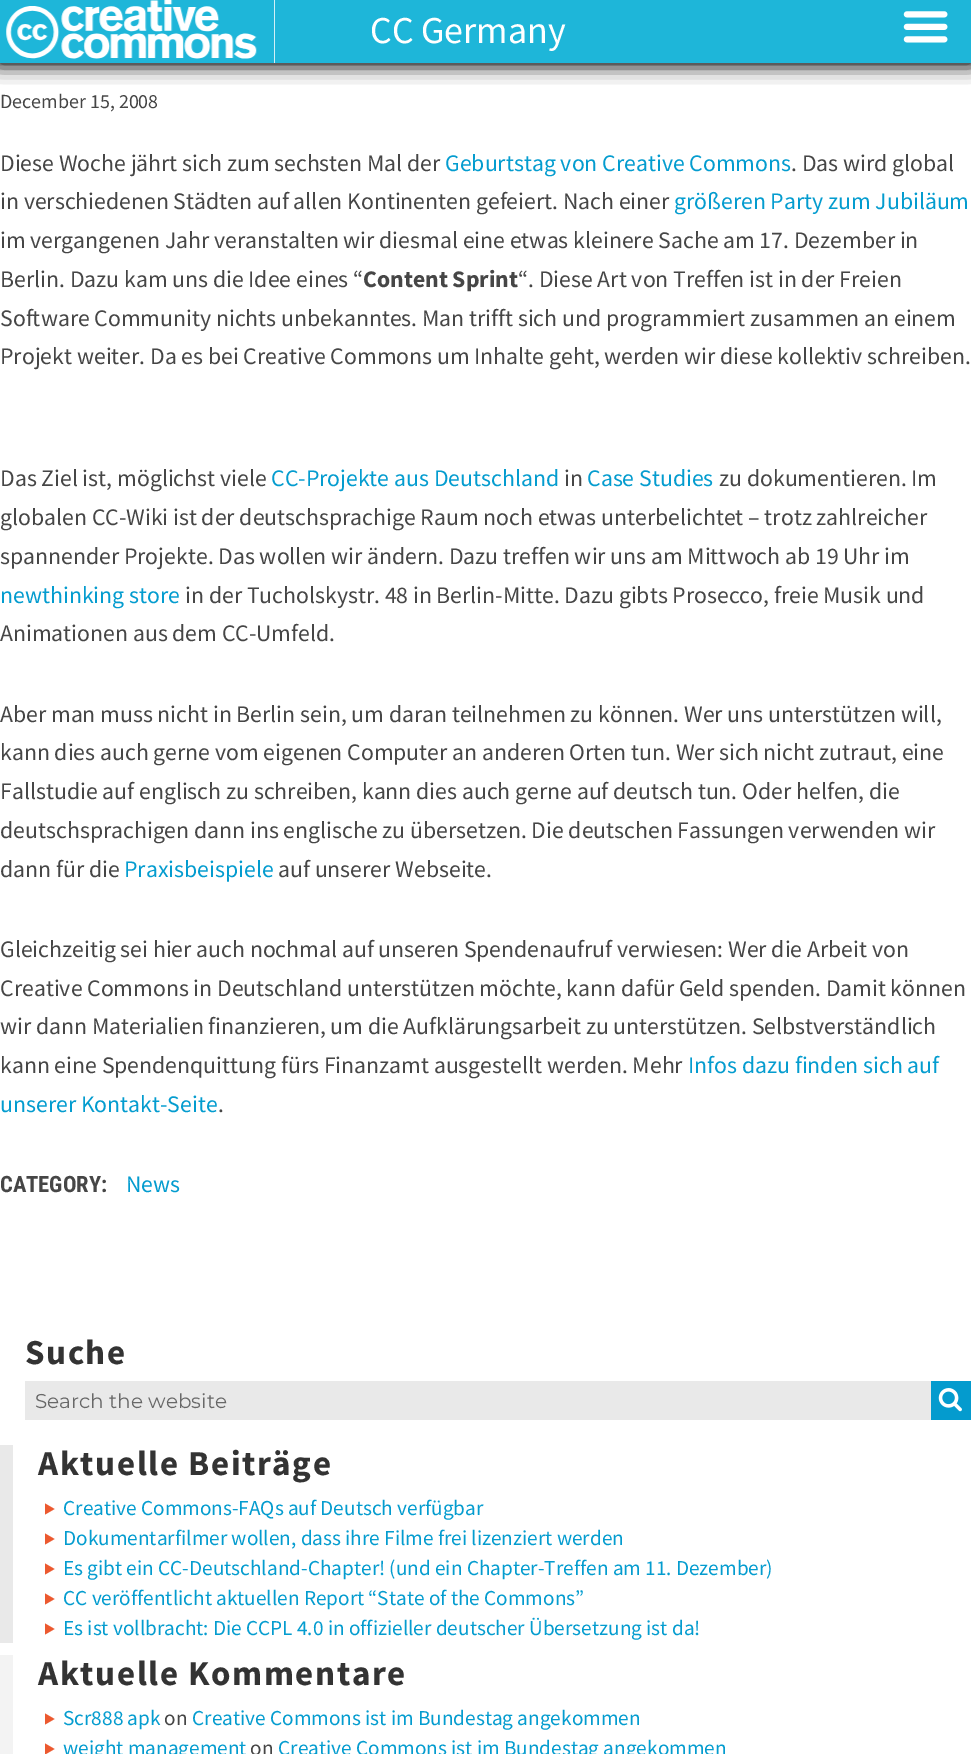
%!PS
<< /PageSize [971 1754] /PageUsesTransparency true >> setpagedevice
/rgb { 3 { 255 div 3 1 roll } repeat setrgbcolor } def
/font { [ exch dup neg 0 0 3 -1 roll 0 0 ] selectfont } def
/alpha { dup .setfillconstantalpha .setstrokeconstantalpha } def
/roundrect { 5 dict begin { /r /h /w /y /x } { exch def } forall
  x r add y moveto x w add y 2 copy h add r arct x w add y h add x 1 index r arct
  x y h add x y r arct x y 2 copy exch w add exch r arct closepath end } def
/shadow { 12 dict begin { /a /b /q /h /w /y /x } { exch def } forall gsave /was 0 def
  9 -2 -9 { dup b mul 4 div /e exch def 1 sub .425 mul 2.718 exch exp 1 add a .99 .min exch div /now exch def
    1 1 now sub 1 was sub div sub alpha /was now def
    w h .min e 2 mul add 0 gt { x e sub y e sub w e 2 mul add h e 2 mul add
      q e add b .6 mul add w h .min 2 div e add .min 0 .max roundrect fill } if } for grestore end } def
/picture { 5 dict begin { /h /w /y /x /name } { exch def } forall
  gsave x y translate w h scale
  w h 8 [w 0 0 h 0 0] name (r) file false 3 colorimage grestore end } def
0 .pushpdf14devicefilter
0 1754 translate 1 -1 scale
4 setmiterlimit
255 255 255 rgb
0 0 971 1754 rectfill
0 0 0 rgb
-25 0 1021 63 0 9.5 0.8 shadow
0 0 971 63 0 9.5 0.8 shadow
30 182 217 rgb
0 0 971 63 rectfill
210 240 247 rgb
274 0 1 63 rectfill
(img/1.rgb) 6 0 251 59 picture
(img/2.rgb) 903 11 45 32 picture
233 233 233 rgb
25 1381 906 39 rectfill
4 155 206 rgb
931 1381 40 39 rectfill
(img/3.rgb) 938 1388 24 24 picture
233 233 233 rgb
0 1445 13 198 rectfill
236 89 47 rgb
45 1503.5 moveto 54.5 1509 lineto 45 1514.5 lineto closepath fill
45 1533.5 moveto 54.5 1539 lineto 45 1544.5 lineto closepath fill
45 1563.5 moveto 54.5 1569 lineto 45 1574.5 lineto closepath fill
45 1593.5 moveto 54.5 1599 lineto 45 1604.5 lineto closepath fill
45 1623.5 moveto 54.5 1629 lineto 45 1634.5 lineto closepath fill
243 243 243 rgb
0 1655 13 99 rectfill
236 89 47 rgb
45 1713.5 moveto 54.5 1719 lineto 45 1724.5 lineto closepath fill
45 1743.5 moveto 54.5 1749 lineto 45 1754.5 lineto closepath fill
/SourceSansPro-Regular 38 font
255 255 255 rgb
370 43 moveto (CC Germany) show
/SourceSansPro-Regular 20 font
70 70 70 rgb
0 108 moveto (December 15, 2008) show
/SourceSansPro-Regular 23.75 font
0 171 moveto (Diese Woche jährt sich zum sechsten Mal der) show
4 156 207 rgb
445 171 moveto (Geburtstag von Creative Commons) show
70 70 70 rgb
791 171 moveto (. Das wird global) show
0 209 moveto (in verschiedenen Städten auf allen Kontinenten gefeiert. Nach einer) show
4 156 207 rgb
674 209 moveto (größeren Party zum Jubiläum) show
70 70 70 rgb
0 248 moveto (im vergangenen Jahr veranstalten wir diesmal eine etwas kleinere Sache am 17. Dezember in) show
0 287 moveto (Berlin. Dazu kam uns die Idee eines “) show
/SourceSansPro-Bold 23.75 font
363 287 moveto (Content Sprint) show
/SourceSansPro-Regular 23.75 font
[
  [(“. Diese Art von Treffen ist in der Freien) 518 287]
  [(Software Community nichts unbekanntes. Man trifft sich und programmiert zusammen an einem) 0 326]
  [(Projekt weiter. Da es bei Creative Commons um Inhalte geht, werden wir diese kollektiv schreiben.) 0 364]
  [(Das Ziel ist, möglichst viele) 0 486]
] { aload pop moveto show } forall
4 156 207 rgb
271 486 moveto (CC-Projekte aus Deutschland) show
70 70 70 rgb
564 486 moveto (in) show
4 156 207 rgb
587 486 moveto (Case Studies) show
70 70 70 rgb
[
  [(zu dokumentieren. Im) 719 486]
  [(globalen CC-Wiki ist der deutschsprachige Raum noch etwas unterbelichtet – trotz zahlreicher) 0 525]
  [(spannender Projekte. Das wollen wir ändern. Dazu treffen wir uns am Mittwoch ab 19 Uhr im) 0 564]
] { aload pop moveto show } forall
4 156 207 rgb
0 603 moveto (newthinking store) show
70 70 70 rgb
[
  [(in der Tucholskystr. 48 in Berlin-Mitte. Dazu gibts Prosecco, freie Musik und) 185 603]
  [(Animationen aus dem CC-Umfeld.) 0 641]
  [(Aber man muss nicht in Berlin sein, um daran teilnehmen zu können. Wer uns unterstützen will,) 0 722]
  [(kann dies auch gerne vom eigenen Computer an anderen Orten tun. Wer sich nicht zutraut, eine) 0 760]
  [(Fallstudie auf englisch zu schreiben, kann dies auch gerne auf deutsch tun. Oder helfen, die) 0 799]
  [(deutschsprachigen dann ins englische zu übersetzen. Die deutschen Fassungen verwenden wir) 0 838]
  [(dann für die) 0 877]
] { aload pop moveto show } forall
4 156 207 rgb
124 877 moveto (Praxisbeispiele) show
70 70 70 rgb
[
  [(auf unserer Webseite.) 278 877]
  [(Gleichzeitig sei hier auch nochmal auf unseren Spendenaufruf verwiesen: Wer die Arbeit von) 0 957]
  [(Creative Commons in Deutschland unterstützen möchte, kann dafür Geld spenden. Damit können) 0 996]
  [(wir dann Materialien finanzieren, um die Aufklärungsarbeit zu unterstützen. Selbstverständlich) 0 1034]
  [(kann eine Spendenquittung fürs Finanzamt ausgestellt werden. Mehr) 0 1073]
] { aload pop moveto show } forall
4 156 207 rgb
688 1073 moveto (Infos dazu finden sich auf) show
0 1112 moveto (unserer Kontakt-Seite) show
70 70 70 rgb
218 1112 moveto (.) show
/RobotoCondensed-Bold 22.5 font
0 1192 moveto (CATEGORY:) show
/SourceSansPro-Regular 23.75 font
4 156 207 rgb
126 1192 moveto (News) show
/SourceSansPro-Bold 35 font
51 51 51 rgb
25 1364 moveto 1.6 0 (Suche) ashow
/Montserrat-Regular 20 font
104 104 104 rgb
35 1408 moveto (Search the website) show
/SourceSansPro-Bold 35 font
51 51 51 rgb
38 1475 moveto 1.6 0 (Aktuelle Beiträge) ashow
/SourceSansPro-Regular 21.25 font
4 156 207 rgb
[
  [(Creative Commons-FAQs auf Deutsch verfügbar) 63 1515]
  [(Dokumentarfilmer wollen, dass ihre Filme frei lizenziert werden) 63 1545]
  [(Es gibt ein CC-Deutschland-Chapter! \(und ein Chapter-Treffen am 11. Dezember\)) 63 1575]
  [(CC veröffentlicht aktuellen Report “State of the Commons”) 63 1605]
  [(Es ist vollbracht: Die CCPL 4.0 in offizieller deutscher Übersetzung ist da!) 63 1635]
] { aload pop moveto show } forall
/SourceSansPro-Bold 35 font
51 51 51 rgb
38 1685 moveto 1.6 0 (Aktuelle Kommentare) ashow
/SourceSansPro-Regular 21.25 font
4 156 207 rgb
63 1725 moveto (Scr888 apk) show
70 70 70 rgb
164 1725 moveto (on) show
4 156 207 rgb
192 1725 moveto (Creative Commons ist im Bundestag angekommen) show
63 1755 moveto (weight management) show
70 70 70 rgb
250 1755 moveto (on) show
4 156 207 rgb
278 1755 moveto (Creative Commons ist im Bundestag angekommen) show
.poppdf14devicefilter showpage
